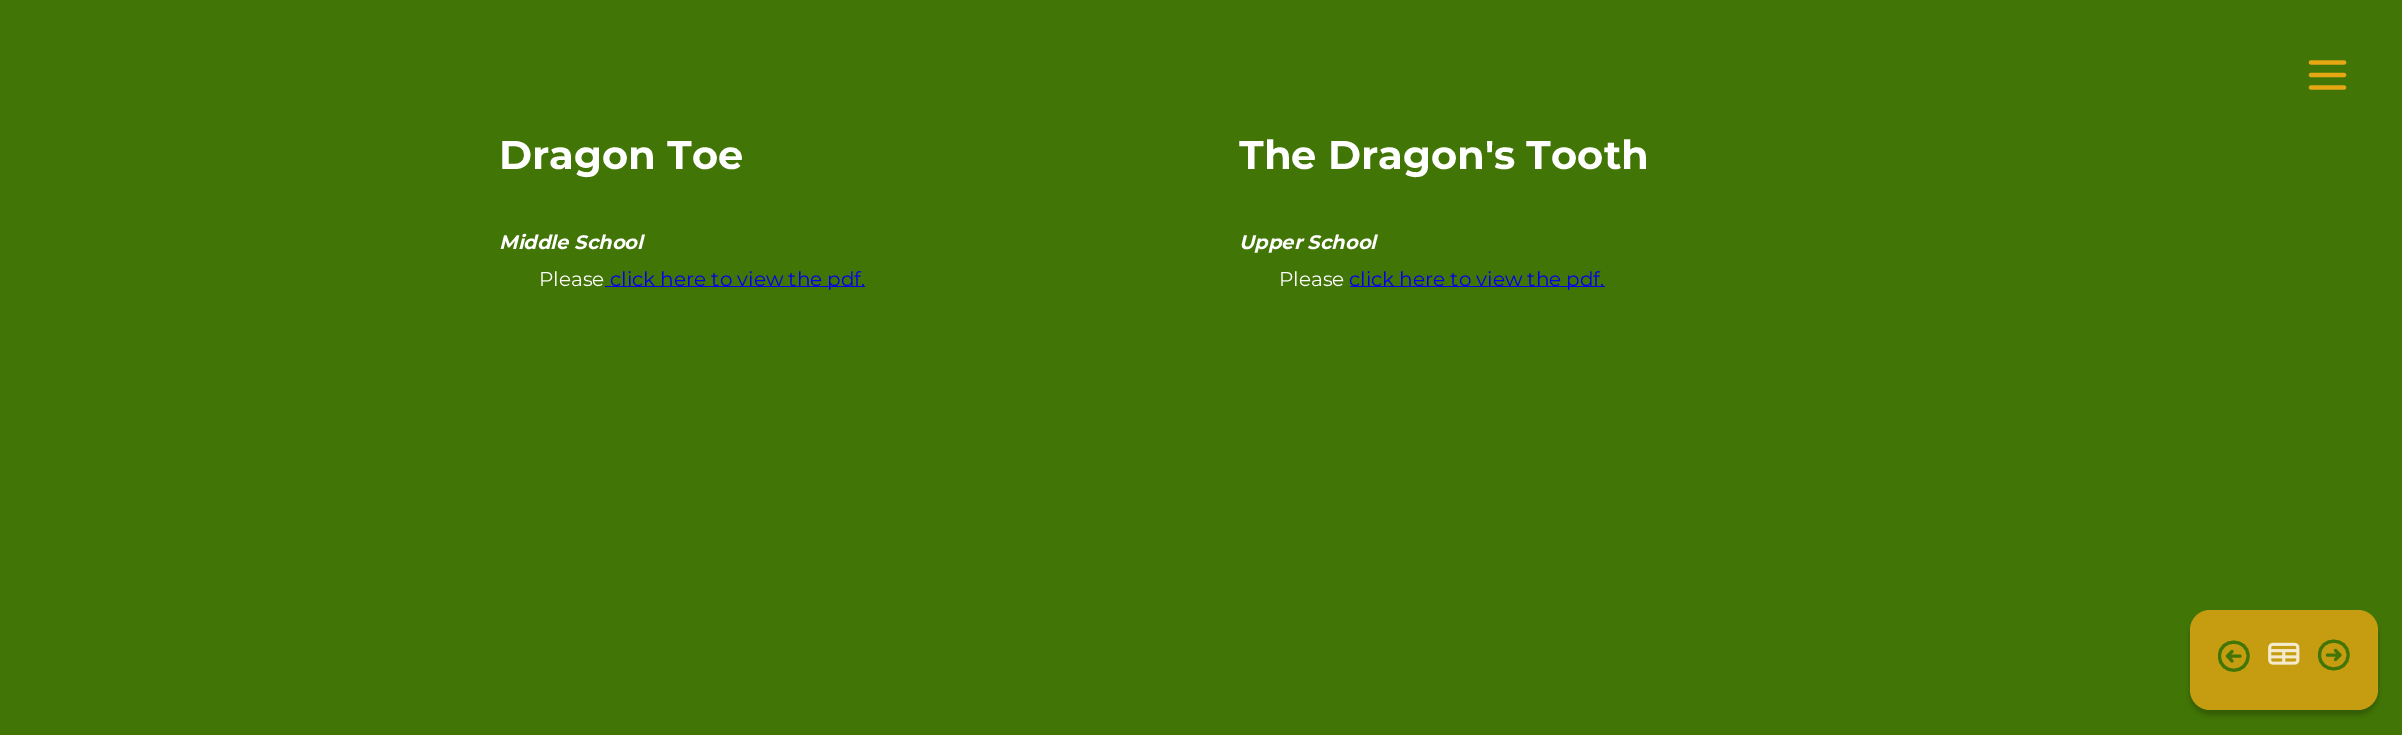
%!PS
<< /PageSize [2402 735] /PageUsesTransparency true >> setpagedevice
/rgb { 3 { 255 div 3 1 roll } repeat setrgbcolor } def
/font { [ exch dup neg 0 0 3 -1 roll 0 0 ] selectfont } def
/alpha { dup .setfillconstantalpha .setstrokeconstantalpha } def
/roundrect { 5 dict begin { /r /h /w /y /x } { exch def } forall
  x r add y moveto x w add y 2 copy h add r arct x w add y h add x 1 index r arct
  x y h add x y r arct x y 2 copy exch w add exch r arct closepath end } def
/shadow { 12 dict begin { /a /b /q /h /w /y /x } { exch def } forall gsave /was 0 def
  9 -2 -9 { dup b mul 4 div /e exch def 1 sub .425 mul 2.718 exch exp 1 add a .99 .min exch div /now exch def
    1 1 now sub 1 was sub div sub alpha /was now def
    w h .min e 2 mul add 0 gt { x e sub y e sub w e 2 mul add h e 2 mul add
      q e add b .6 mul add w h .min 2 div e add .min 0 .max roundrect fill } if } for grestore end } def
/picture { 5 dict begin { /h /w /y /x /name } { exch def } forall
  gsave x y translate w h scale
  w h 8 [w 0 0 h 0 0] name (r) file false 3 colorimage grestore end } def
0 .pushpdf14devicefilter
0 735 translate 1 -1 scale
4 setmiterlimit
65 117 5 rgb
0 0 2402 735 rectfill
231 167 19 rgb
4.2 setlinewidth
1 setlinecap
1 setlinejoin
2311 62.5 moveto 2344 62.5 lineto 2311 75 moveto 2344 75 lineto 2311 87.5 moveto 2344 87.5 lineto stroke
0 0 238 rgb
605 286 260 1 rectfill
1350 286 255 1 rectfill
13 23 1 rgb
2190 615 188 100 20 2.5 0.25 shadow
198 157 16 rgb
2190 610 188 100 20 roundrect fill
65 117 5 rgb
3.1 setlinewidth
2232 661 moveto 2227.5 656 lineto 2227.5 656 moveto 2232 651.5 lineto 2227.5 656 moveto 2240 656 lineto 2219.5 656 moveto 2219.5 637.5 2248 637.5 2248 656 curveto 2248 675 2219.5 675 2219.5 656 curveto closepath stroke
(img/1.rgb) 2268 642 32 23 picture
2335.5 650.5 moveto 2340 655 lineto 2340 655 moveto 2335.5 659.5 lineto 2340 655 moveto 2327.5 655 lineto 2348 655 moveto 2348 673.5 2319.5 673.5 2319.5 655 curveto 2319.5 636.5 2348 636.5 2348 655 curveto closepath stroke
/Montserrat-Bold 40 font
255 255 255 rgb
499 169 moveto (Dragon Toe) show
/Montserrat-BoldItalic 19.5 font
499 249 moveto (Middle School) show
/Montserrat-Regular 20 font
539 286 moveto (Please) show
0 0 238 rgb
610 286 moveto (click here to view the pdf.) show
/Montserrat-Bold 40 font
255 255 255 rgb
1239 169 moveto (The Dragon's Tooth) show
/Montserrat-BoldItalic 19.5 font
1239 249 moveto (Upper School) show
/Montserrat-Regular 20 font
1279 286 moveto (Please) show
0 0 238 rgb
1349 286 moveto (click here to view the pdf.) show
.poppdf14devicefilter showpage
